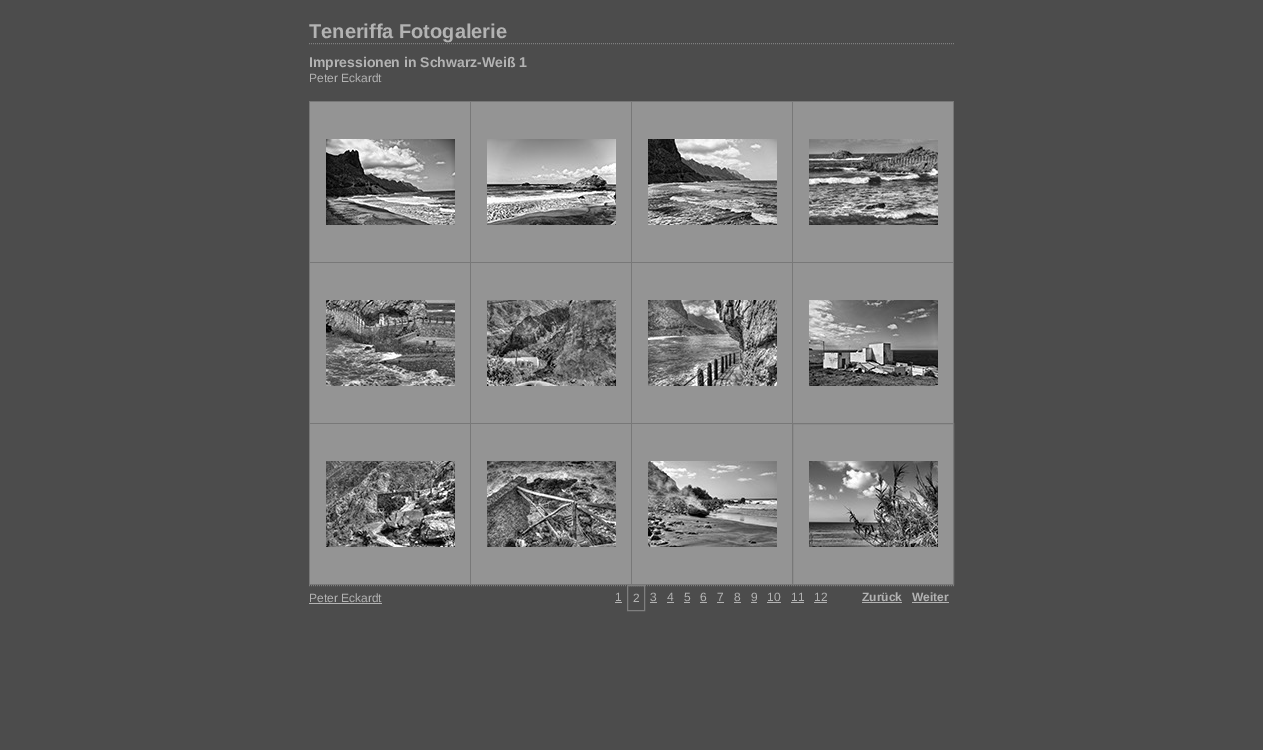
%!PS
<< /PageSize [1263 750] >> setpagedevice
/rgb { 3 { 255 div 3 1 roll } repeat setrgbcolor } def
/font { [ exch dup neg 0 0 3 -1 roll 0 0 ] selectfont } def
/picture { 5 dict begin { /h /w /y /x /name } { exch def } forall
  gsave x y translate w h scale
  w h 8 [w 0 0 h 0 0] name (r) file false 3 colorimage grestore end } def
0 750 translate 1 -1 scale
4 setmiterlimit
76 76 76 rgb
0 0 1263 750 rectfill
127 127 127 rgb
[1 1] 0 setdash
309 43.5 moveto 954 43.5 lineto stroke
[
  [310 102 160 160 148 148 148]
  [309 101 645 1 120 120 120]
  [309 101 1 161 120 120 120]
] { aload pop rgb rectfill } forall
(img/1.rgb) 326 139 129 86 picture
148 148 148 rgb
471 102 160 160 rectfill
120 120 120 rgb
470 101 1 161 rectfill
(img/2.rgb) 487 139 129 86 picture
148 148 148 rgb
632 102 160 160 rectfill
120 120 120 rgb
631 101 1 161 rectfill
(img/3.rgb) 648 139 129 86 picture
[
  [793 102 160 160 148 148 148]
  [953 101 1 161 120 120 120]
  [792 101 1 161 120 120 120]
] { aload pop rgb rectfill } forall
(img/4.rgb) 809 139 129 86 picture
[
  [310 263 160 160 148 148 148]
  [309 262 645 1 120 120 120]
  [309 262 1 161 120 120 120]
] { aload pop rgb rectfill } forall
(img/5.rgb) 326 300 129 86 picture
148 148 148 rgb
471 263 160 160 rectfill
120 120 120 rgb
470 262 1 161 rectfill
(img/6.rgb) 487 300 129 86 picture
148 148 148 rgb
632 263 160 160 rectfill
120 120 120 rgb
631 262 1 161 rectfill
(img/7.rgb) 648 300 129 86 picture
[
  [793 263 160 160 148 148 148]
  [953 262 1 161 120 120 120]
  [792 262 1 161 120 120 120]
] { aload pop rgb rectfill } forall
(img/8.rgb) 809 300 129 86 picture
[
  [310 424 160 160 148 148 148]
  [309 423 483 1 120 120 120]
  [309 584 483 1 120 120 120]
  [309 423 1 162 120 120 120]
] { aload pop rgb rectfill } forall
(img/9.rgb) 326 461 129 86 picture
148 148 148 rgb
471 424 160 160 rectfill
120 120 120 rgb
470 423 1 162 rectfill
(img/10.rgb) 487 461 129 86 picture
148 148 148 rgb
632 424 160 160 rectfill
120 120 120 rgb
631 423 1 162 rectfill
(img/11.rgb) 648 461 129 86 picture
148 148 148 rgb
792.5 423.5 moveto 953.5 423.5 lineto 953.5 584.5 lineto 792.5 584.5 lineto closepath gsave fill grestore
120 120 120 rgb
[] 0 setdash
stroke
(img/12.rgb) 809 461 129 86 picture
127 127 127 rgb
[1 1] 0 setdash
309 585.5 moveto 954 585.5 lineto stroke
179 179 179 rgb
309 603 73 1 rectfill
615 602 7 1 rectfill
127 127 127 rgb
[] 0 setdash
627.5 585.5 17 25 rectstroke
[
  [650 602 7 1 179 179 179]
  [667 602 7 1 179 179 179]
  [684 602 6 1 179 179 179]
  [700 602 7 1 179 179 179]
  [717 602 7 1 179 179 179]
  [734 602 7 1 179 179 179]
  [751 602 6 1 179 179 179]
  [767 602 14 1 179 179 179]
  [791 602 13 1 179 179 179]
  [814 602 13 1 179 179 179]
  [862 602 40 1 179 179 179]
  [912 602 37 1 179 179 179]
] { aload pop rgb rectfill } forall
/LiberationSans-Bold 20 font
309 38 moveto (Teneriffa Fotogalerie) show
/LiberationSans-Bold 14 font
309 67 moveto (Impressionen in Schwarz-Weiß 1) show
/LiberationSans-Regular 12 font
[
  [(Peter Eckardt) 309 82]
  [(Peter Eckardt) 309 602]
  [(1) 615 601]
  [(2) 633 602]
  [(3) 650 601]
  [(4) 667 601]
  [(5) 684 601]
  [(6) 700 601]
  [(7) 717 601]
  [(8) 734 601]
  [(9) 751 601]
  [(10) 767 601]
  [(11) 791 601]
  [(12) 814 601]
] { aload pop moveto show } forall
/LiberationSans-Bold 12 font
862 601 moveto (Zurück) show
912 601 moveto (Weiter) show
showpage
